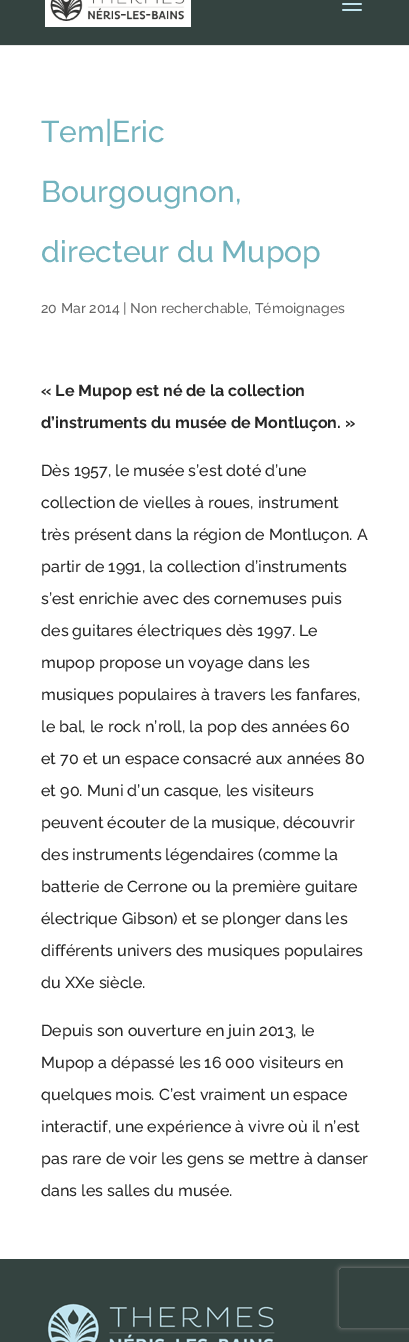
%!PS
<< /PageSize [409 1342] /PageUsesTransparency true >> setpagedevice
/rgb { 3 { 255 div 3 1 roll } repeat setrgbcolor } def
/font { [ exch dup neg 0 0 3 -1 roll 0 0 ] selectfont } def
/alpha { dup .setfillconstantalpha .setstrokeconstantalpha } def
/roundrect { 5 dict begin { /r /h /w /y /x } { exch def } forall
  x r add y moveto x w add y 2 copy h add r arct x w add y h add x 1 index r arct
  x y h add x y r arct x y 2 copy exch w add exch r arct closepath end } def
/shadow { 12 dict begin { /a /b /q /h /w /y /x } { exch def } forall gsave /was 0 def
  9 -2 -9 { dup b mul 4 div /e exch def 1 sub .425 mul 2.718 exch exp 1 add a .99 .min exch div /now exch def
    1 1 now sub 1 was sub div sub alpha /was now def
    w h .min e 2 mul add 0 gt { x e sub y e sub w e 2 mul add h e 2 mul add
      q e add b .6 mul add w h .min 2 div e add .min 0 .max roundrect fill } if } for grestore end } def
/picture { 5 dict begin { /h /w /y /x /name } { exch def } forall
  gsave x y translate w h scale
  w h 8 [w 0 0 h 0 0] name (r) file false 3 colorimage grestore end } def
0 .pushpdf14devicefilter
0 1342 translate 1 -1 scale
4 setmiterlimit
255 255 255 rgb
0 0 409 1342 rectfill
230 230 230 rgb
0 45 409 1 rectfill
52 67 64 rgb
0 0 409 45 rectfill
(img/1.rgb) 45 0 146 27 picture
(img/2.rgb) 342 3 20 8 picture
0 1259 409 83 rectfill
(img/3.rgb) 47 1303 228 39 picture
gsave
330 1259 moveto 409 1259 lineto 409 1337 lineto 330 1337 lineto closepath 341 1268 moveto 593 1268 lineto 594 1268 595 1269 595 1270 curveto 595 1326 lineto 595 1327 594 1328 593 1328 curveto 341 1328 lineto 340 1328 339 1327 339 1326 curveto 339 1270 lineto 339 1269 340 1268 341 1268 curveto closepath eoclip newpath
128 128 128 rgb
339 1268 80 60 2 2.5 1 shadow
grestore
/Raleway-Medium 30 font
115 179 190 rgb
[
  [(Tem|Eric) 41 142]
  [(Bourgougnon,) 41 202]
  [(directeur du Mupop) 41 262]
] { aload pop moveto show } forall
/Raleway-Medium 14 font
102 102 102 rgb
41 313 moveto (20 Mar 2014 | Non recherchable, Témoignages) show
/Raleway-Bold 16 font
40 40 40 rgb
41 396 moveto (« Le Mupop est né de la collection) show
41 428 moveto (d’instruments du musée de Montluçon. ») show
/Raleway-Medium 16 font
[
  [(Dès 1957, le musée s’est doté d’une) 41 476]
  [(collection de vielles à roues, instrument) 41 508]
  [(très présent dans la région de Montluçon. A) 41 540]
  [(partir de 1991, la collection d’instruments) 41 572]
  [(s’est enrichie avec des cornemuses puis) 41 604]
  [(des guitares électriques dès 1997. Le) 41 636]
  [(mupop propose un voyage dans les) 41 668]
  [(musiques populaires à travers les fanfares,) 41 700]
  [(le bal, le rock n’roll, la pop des années 60) 41 732]
  [(et 70 et un espace consacré aux années 80) 41 764]
  [(et 90. Muni d’un casque, les visiteurs) 41 796]
  [(peuvent écouter de la musique, découvrir) 41 828]
  [(des instruments légendaires \(comme la) 41 860]
  [(batterie de Cerrone ou la première guitare) 41 892]
  [(électrique Gibson\) et se plonger dans les) 41 924]
  [(différents univers des musiques populaires) 41 956]
  [(du XXe siècle.) 41 988]
  [(Depuis son ouverture en juin 2013, le) 41 1036]
  [(Mupop a dépassé les 16 000 visiteurs en) 41 1068]
  [(quelques mois. C’est vraiment un espace) 41 1100]
  [(interactif, une expérience à vivre où il n’est) 41 1132]
  [(pas rare de voir les gens se mettre à danser) 41 1164]
  [(dans les salles du musée.) 41 1196]
] { aload pop moveto show } forall
.poppdf14devicefilter showpage
